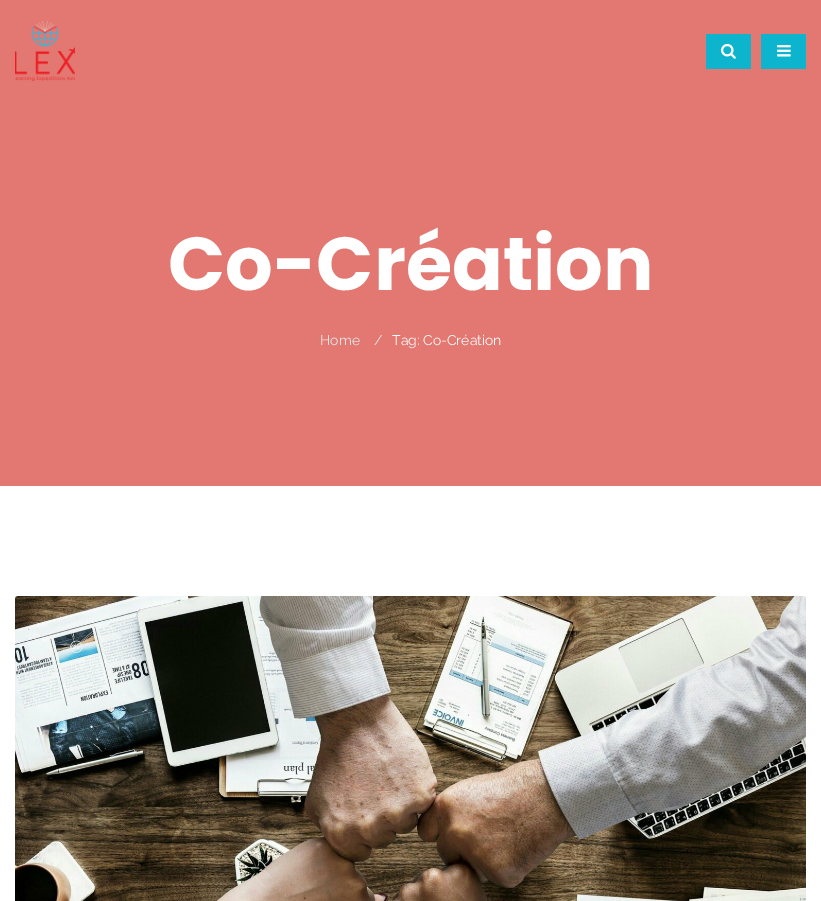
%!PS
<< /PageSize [821 901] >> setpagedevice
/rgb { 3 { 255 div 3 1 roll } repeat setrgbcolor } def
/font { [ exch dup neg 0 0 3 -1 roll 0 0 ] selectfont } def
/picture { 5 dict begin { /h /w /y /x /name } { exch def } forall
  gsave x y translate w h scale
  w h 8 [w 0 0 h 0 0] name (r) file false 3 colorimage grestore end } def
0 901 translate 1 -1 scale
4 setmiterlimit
255 255 255 rgb
0 0 821 901 rectfill
226 120 113 rgb
0 0 821 486 rectfill
(img/1.rgb) 15 21 60 60 picture
12 180 206 rgb
706 34 45 35 rectfill
(img/2.rgb) 721 43 15 16 picture
761 34 45 35 rectfill
(img/3.rgb) 777 45 14 12 picture
(img/4.rgb) 15 596 791 305 picture
/Poppins-Bold 75 font
255 255 255 rgb
168 290 moveto (Co-Création) show
/Raleway-Regular 14 font
229 228 228 rgb
320 345 moveto (Home) show
374 345 moveto (/) show
249 249 249 rgb
392 345 moveto (Tag: Co-Création) show
showpage
